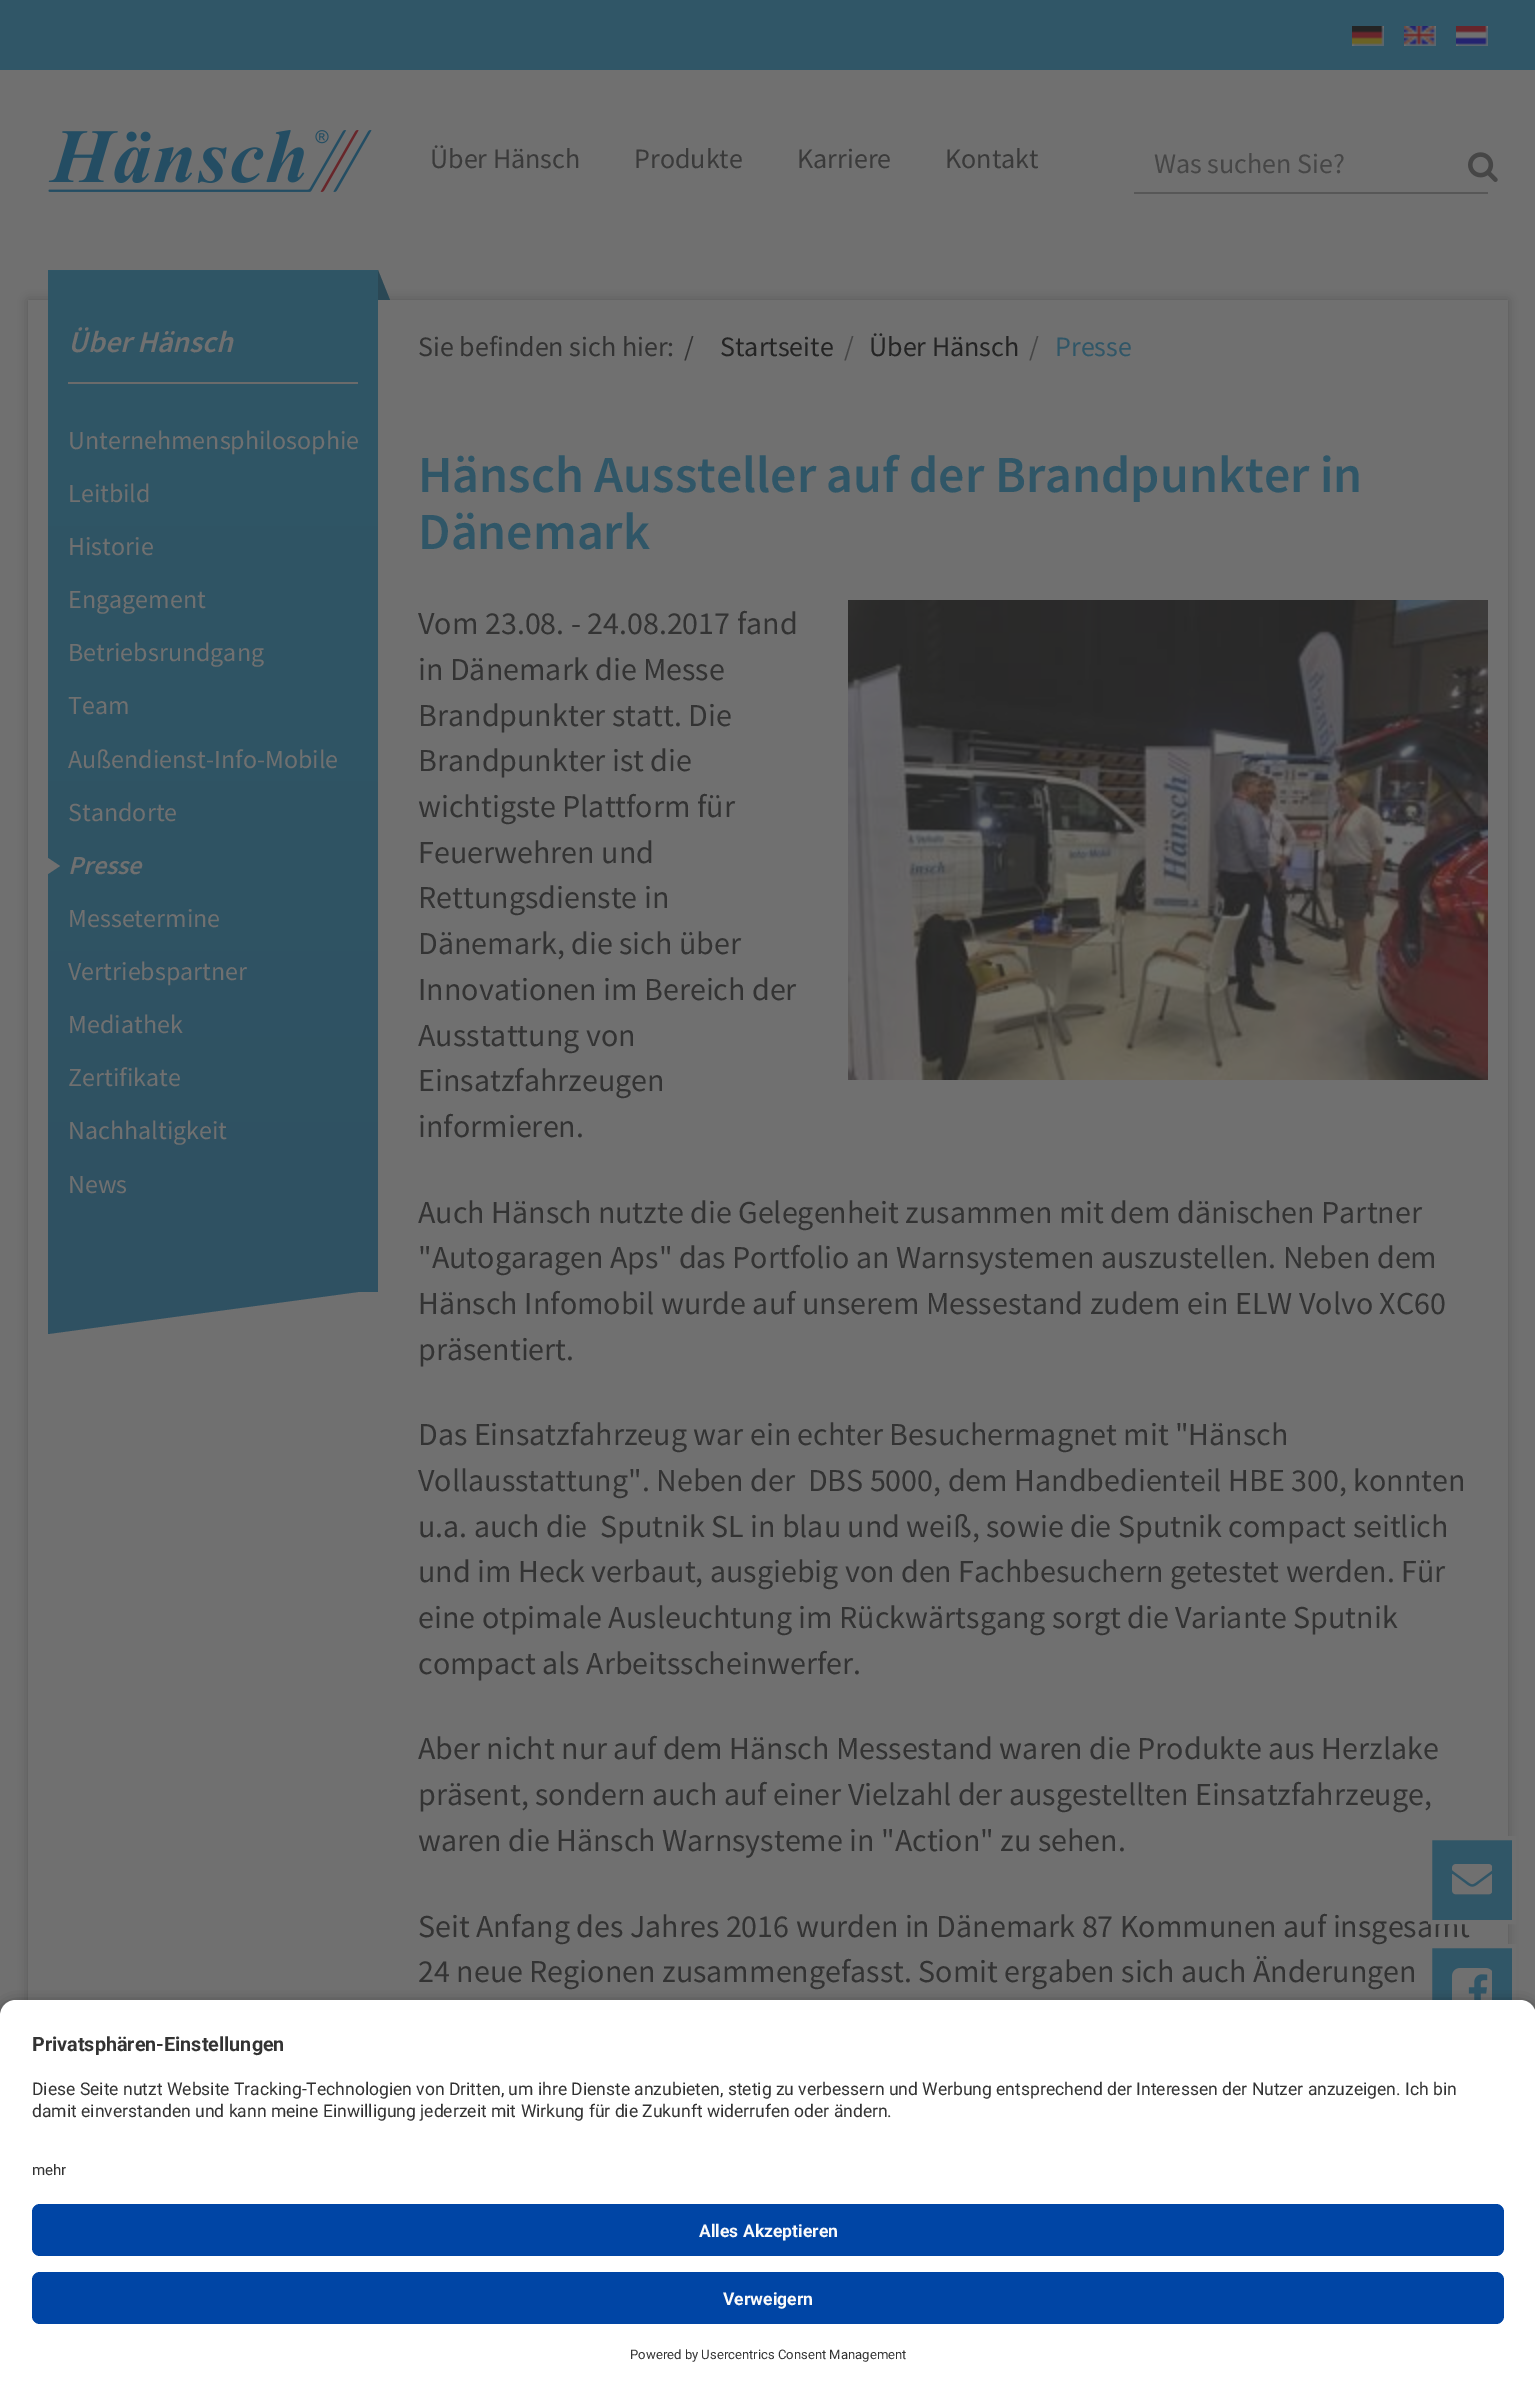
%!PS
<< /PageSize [1535 2396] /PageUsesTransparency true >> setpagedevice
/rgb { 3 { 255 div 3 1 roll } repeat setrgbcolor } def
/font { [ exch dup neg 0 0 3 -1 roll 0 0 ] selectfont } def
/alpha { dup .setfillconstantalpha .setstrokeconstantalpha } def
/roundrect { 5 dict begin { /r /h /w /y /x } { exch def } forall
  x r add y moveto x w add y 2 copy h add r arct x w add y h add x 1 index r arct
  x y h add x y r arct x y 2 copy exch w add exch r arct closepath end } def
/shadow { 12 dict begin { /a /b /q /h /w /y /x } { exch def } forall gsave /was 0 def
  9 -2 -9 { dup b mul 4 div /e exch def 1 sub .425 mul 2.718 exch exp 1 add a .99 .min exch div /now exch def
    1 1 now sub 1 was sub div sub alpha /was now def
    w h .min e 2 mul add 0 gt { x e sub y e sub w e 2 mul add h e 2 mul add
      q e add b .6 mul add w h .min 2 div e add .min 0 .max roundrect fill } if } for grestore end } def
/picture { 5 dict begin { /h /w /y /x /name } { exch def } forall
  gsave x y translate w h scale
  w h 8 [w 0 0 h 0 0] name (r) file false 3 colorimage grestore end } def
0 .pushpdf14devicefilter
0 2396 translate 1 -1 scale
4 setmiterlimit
112 112 112 rgb
0 0 1535 2396 rectfill
48 86 103 rgb
0 0 1535 70 rectfill
(img/1.rgb) 1352 26 32 20 picture
(img/2.rgb) 1404 26 32 20 picture
(img/3.rgb) 1456 26 32 20 picture
(img/4.rgb) 48 130 324 62 picture
87 87 87 rgb
1134 192 354 2 rectfill
(img/5.rgb) 1468 152 30 30 picture
gsave
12 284 moveto 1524 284 lineto 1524 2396 lineto 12 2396 lineto closepath 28 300 moveto 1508 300 lineto 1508 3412 lineto 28 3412 lineto closepath eoclip newpath
36 36 36 rgb
28 300 1480 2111 0 5 0.3 shadow
grestore
43 72 85 rgb
378 300 moveto 378 270 lineto 390 300 lineto closepath fill
gsave 48 270 moveto 378 270 lineto 378 1292 lineto 48 1292 lineto closepath clip newpath
<< /ShadingType 2 /ColorSpace /DeviceRGB /Coords [213 1292 213 270] /Extend [true true] /Function << /FunctionType 2 /Domain [0 1] /C0 [0.184 0.318 0.384] /C1 [0.188 0.337 0.4] /N 1 >> >> shfill grestore
107 107 107 rgb
68 382 290 2 rectfill
112 112 112 rgb
48 874 moveto 48 858 lineto 60 866 lineto closepath fill
47 81 98 rgb
48 1334 moveto 48 1292 lineto 358 1292 lineto closepath fill
(img/6.rgb) 848 600 640 480 picture
48 86 103 rgb
1432 1948 80 52 rectfill
/SourceSansPro-Regular 28 font
58 58 58 rgb
[
  [(Über Hänsch) 430 168]
  [(Produkte) 634 168]
  [(Karriere) 797 168]
  [(Kontakt) 945 168]
] { aload pop moveto show } forall
70 70 70 rgb
1154 173 moveto (Was suchen Sie?) show
/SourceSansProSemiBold-SemiBoldItalic 30 font
112 112 112 rgb
68 352 moveto (Über Hänsch) show
/SourceSansPro-Regular 26 font
[
  [(Unternehmensphilosophie) 68 449]
  [(Leitbild) 68 502]
  [(Historie) 68 555]
  [(Engagement) 68 608]
  [(Betriebsrundgang) 68 661]
  [(Team) 68 714]
  [(Außendienst-Info-Mobile) 68 768]
  [(Standorte) 68 821]
] { aload pop moveto show } forall
/SourceSansProSemiBold-SemiBoldItalic 26 font
68 874 moveto (Presse) show
/SourceSansPro-Regular 26 font
[
  [(Messetermine) 68 927]
  [(Vertriebspartner) 68 980]
  [(Mediathek) 68 1033]
  [(Zertifikate) 68 1086]
  [(Nachhaltigkeit) 68 1139]
  [(News) 68 1193]
] { aload pop moveto show } forall
/SourceSansPro-Regular 28 font
51 51 51 rgb
418 356 moveto (Sie befinden sich hier:) show
684 356 moveto (/) show
36 36 36 rgb
720 356 moveto (Startseite) show
70 70 70 rgb
844 356 moveto (/) show
36 36 36 rgb
869 356 moveto (Über Hänsch) show
70 70 70 rgb
1029 356 moveto (/) show
48 86 103 rgb
1055 356 moveto (Presse) show
/SourceSansProSemiBold-SemiBold 52 font
418 492 moveto (Hänsch Aussteller auf der Brandpunkter in) show
418 549 moveto (Dänemark) show
/SourceSansPro-Regular 32 font
51 51 51 rgb
[
  [(Vom 23.08. - 24.08.2017 fand) 418 634]
  [(in Dänemark die Messe) 418 680]
  [(Brandpunkter statt. Die) 418 726]
  [(Brandpunkter ist die) 418 771]
  [(wichtigste Plattform für) 418 817]
  [(Feuerwehren und) 418 863]
  [(Rettungsdienste in) 418 908]
  [(Dänemark, die sich über) 418 954]
  [(Innovationen im Bereich der) 418 1000]
  [(Ausstattung von) 418 1046]
  [(Einsatzfahrzeugen) 418 1091]
  [(informieren.) 418 1137]
  [(Auch Hänsch nutzte die Gelegenheit zusammen mit dem dänischen Partner) 418 1223]
  [("Autogaragen Aps" das Portfolio an Warnsystemen auszustellen. Neben dem) 418 1268]
  [(Hänsch Infomobil wurde auf unserem Messestand zudem ein ELW Volvo XC60) 418 1314]
  [(präsentiert.) 418 1360]
  [(Das Einsatzfahrzeug war ein echter Besuchermagnet mit "Hänsch) 418 1445]
  [(Vollausstattung". Neben der  DBS 5000, dem Handbedienteil HBE 300, konnten) 418 1491]
  [(u.a. auch die  Sputnik SL in blau und weiß, sowie die Sputnik compact seitlich) 418 1537]
  [(und im Heck verbaut, ausgiebig von den Fachbesuchern getestet werden. Für) 418 1582]
  [(eine otpimale Ausleuchtung im Rückwärtsgang sorgt die Variante Sputnik) 418 1628]
  [(compact als Arbeitsscheinwerfer.) 418 1674]
  [(Aber nicht nur auf dem Hänsch Messestand waren die Produkte aus Herzlake) 418 1759]
  [(präsent, sondern auch auf einer Vielzahl der ausgestellten Einsatzfahrzeuge,) 418 1805]
  [(waren die Hänsch Warnsysteme in "Action" zu sehen.) 418 1851]
  [(Seit Anfang des Jahres 2016 wurden in Dänemark 87 Kommunen auf insgesamt) 418 1937]
  [(24 neue Regionen zusammengefasst. Somit ergaben sich auch Änderungen) 418 1982]
] { aload pop moveto show } forall
48 86 103 rgb
1430 1838 moveto 1514 1838 lineto 1514 1922 lineto 1430 1922 lineto closepath gsave fill grestore
112 112 112 rgb
4 setlinewidth
stroke
(img/7.rgb) 1452 1864 40 31 picture
1430 1946 84 84 rectstroke
(img/8.rgb) 1452 1968 40 32 picture
0 0 0 rgb
0 2006 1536 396 16 7 0.8 shadow
255 255 255 rgb
0 2164 1535 232 rectfill
/Roboto-Regular 15 font
51 51 51 rgb
32 2175 moveto (mehr) show
255 255 255 rgb
16 2000 moveto 1520 2000 lineto 1529 2000 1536 2007 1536 2016 curveto 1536 2164 lineto 0 2164 lineto 0 2016 lineto 0 2007 7 2000 16 2000 curveto closepath fill
/Roboto-Bold 19.75 font
51 51 51 rgb
32 2051 moveto (Privatsphären-Einstellungen) show
/Roboto-Regular 17.5 font
32 2117 moveto (damit einverstanden und kann meine Einwilligung jederzeit mit Wirkung für die Zukunft widerrufen oder ändern.) show
32 2095 moveto (Diese Seite nutzt Website Tracking-Technologien von Dritten, um ihre Dienste anzubieten, stetig zu verbessern und Werbung entsprechend der Interessen der Nutzer anzuzeigen. Ich bin) show
0 69 165 rgb
32 2204 1472 52 8 roundrect fill
/Roboto-Bold 17.5 font
250 250 250 rgb
699 2237 moveto (Alles Akzeptieren) show
0 69 165 rgb
32 2272 1472 52 8 roundrect fill
250 250 250 rgb
723 2305 moveto (Verweigern) show
/Roboto-Regular 13.1 font
51 51 51 rgb
630 2359 moveto (Powered by Usercentrics Consent Management) show
.poppdf14devicefilter showpage
